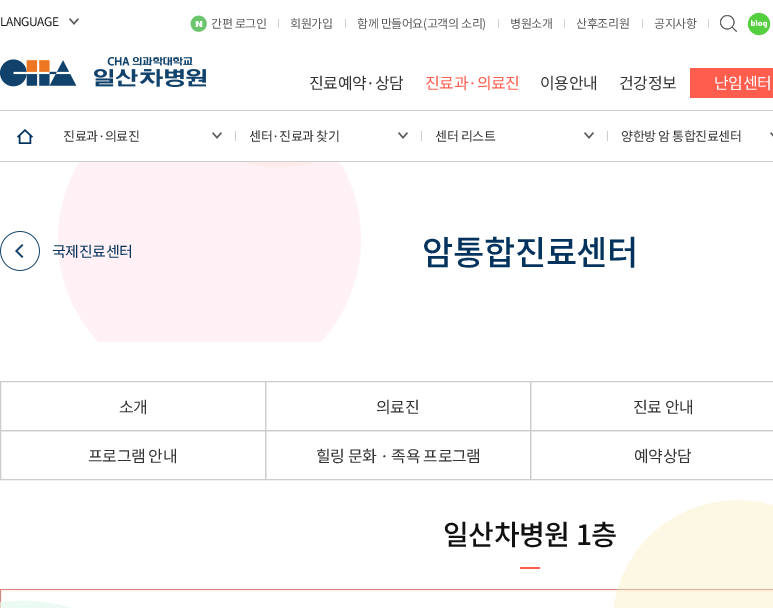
%!PS
<< /PageSize [773 608] >> setpagedevice
/rgb { 3 { 255 div 3 1 roll } repeat setrgbcolor } def
/font { [ exch dup neg 0 0 3 -1 roll 0 0 ] selectfont } def
/picture { 5 dict begin { /h /w /y /x /name } { exch def } forall
  gsave x y translate w h scale
  w h 8 [w 0 0 h 0 0] name (r) file false 3 colorimage grestore end } def
0 608 translate 1 -1 scale
4 setmiterlimit
255 255 255 rgb
0 0 773 608 rectfill
(img/1.rgb) 69 18 10 7 picture
(img/2.rgb) 190 15 17 17 picture
[
  [278 19 1 9 209 209 209]
  [345 19 1 9 209 209 209]
  [498 19 1 9 209 209 209]
  [564 19 1 9 209 209 209]
  [642 19 1 9 209 209 209]
  [708 19 1 9 209 209 209]
] { aload pop rgb rectfill } forall
(img/3.rgb) 720 15 17 17 picture
(img/4.rgb) 747 12 24 24 picture
(img/5.rgb) 0 57 206 30 picture
[
  [690 68 83 30 255 93 78]
  [0 110 773 1 204 204 204]
  [0 161 773 1 204 204 204]
] { aload pop rgb rectfill } forall
(img/6.rgb) 17 129 16 15 picture
235 131 1 10 rectfill
(img/1.rgb) 212 132 10 7 picture
421 131 1 10 rectfill
(img/1.rgb) 398 132 10 7 picture
607 131 1 10 rectfill
(img/1.rgb) 584 132 10 7 picture
(img/7.rgb) 770 132 3 5 picture
(img/9.rgb) 242 162 73 6 picture
(img/8.rgb) 58 162 303 180 picture
(img/10.rgb) 0 231 40 40 picture
0.5 381.5 265 49 rectstroke
265.5 381.5 265 49 rectstroke
530.5 381.5 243 49 rectstroke
0.5 430.5 265 49 rectstroke
265.5 430.5 265 49 rectstroke
530.5 430.5 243 49 rectstroke
255 93 78 rgb
520 567 20 2 rectfill
(img/11.rgb) 0 589 773 19 picture
(img/12.rgb) 0 600 72 8 picture
/NotoSansKR-Regular 12 font
26 26 26 rgb
0 26 moveto -0.4 0 (LANGUAGE) ashow
92 92 92 rgb
211 28 moveto -0.4 0 (간편 로그인) ashow
290 28 moveto -0.4 0 (회원가입) ashow
357 28 moveto -0.4 0 (함께 만들어요\(고객의 소리\)) ashow
510 28 moveto -0.4 0 (병원소개) ashow
576 28 moveto -0.4 0 (산후조리원) ashow
654 28 moveto -0.4 0 (공지사항) ashow
/NotoSansKR-Regular 16 font
51 51 51 rgb
309 89 moveto -0.4 0 (진료예약·상담) ashow
255 93 78 rgb
425 89 moveto -0.4 0 (진료과·의료진) ashow
51 51 51 rgb
540 89 moveto -0.4 0 (이용안내) ashow
619 89 moveto -0.4 0 (건강정보) ashow
255 255 255 rgb
714 89 moveto -0.4 0 (난임센터) ashow
/NotoSansKR-Regular 13 font
51 51 51 rgb
63 141 moveto -0.4 0 (진료과·의료진) ashow
249 141 moveto -0.4 0 (센터·진료과 찾기) ashow
435 141 moveto -0.4 0 (센터 리스트) ashow
621 141 moveto -0.4 0 (양한방 암 통합진료센터) ashow
/NotoSansKR-Regular 15 font
4 52 94 rgb
52 257 moveto -0.4 0 (국제진료센터) ashow
/NotoSansKR-Medium 34 font
422 265 moveto -0.4 0 (암통합진료센터) ashow
/NotoSansKR-Regular 16 font
51 51 51 rgb
119 413 moveto -0.4 0 (소개) ashow
376 413 moveto -0.4 0 (의료진) ashow
633 413 moveto -0.4 0 (진료 안내) ashow
88 462 moveto -0.4 0 (프로그램 안내) ashow
316 462 moveto -0.4 0 (힐링 문화 · 족욕 프로그램) ashow
634 462 moveto -0.4 0 (예약상담) ashow
/NotoSansKR-Medium 28 font
17 17 17 rgb
443 545 moveto -0.4 0 (일산차병원 1층) ashow
(img/13.rgb) 613 500 160 108 picture
showpage
